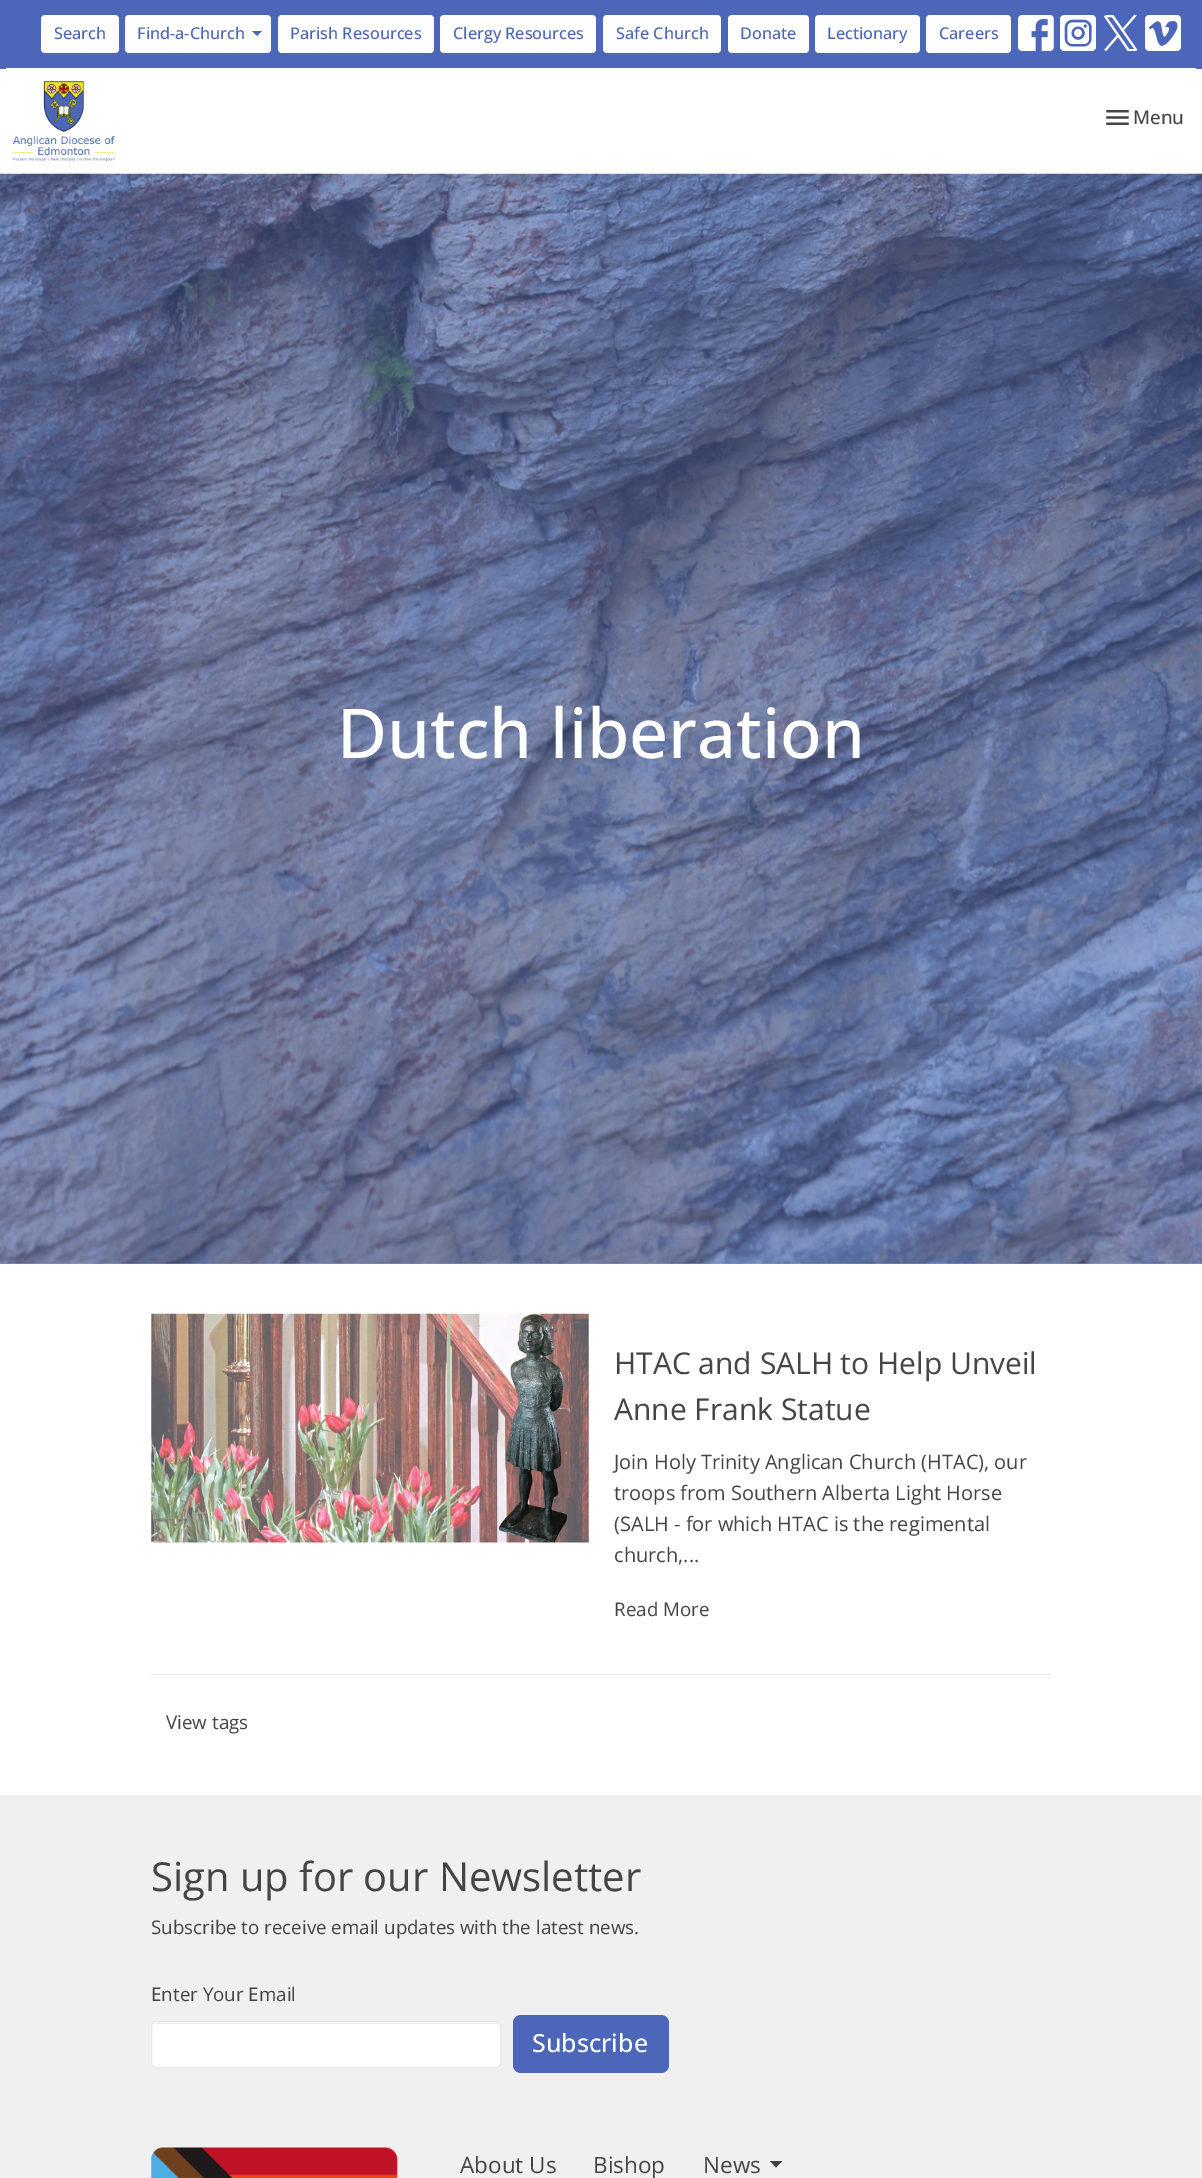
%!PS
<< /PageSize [1202 2178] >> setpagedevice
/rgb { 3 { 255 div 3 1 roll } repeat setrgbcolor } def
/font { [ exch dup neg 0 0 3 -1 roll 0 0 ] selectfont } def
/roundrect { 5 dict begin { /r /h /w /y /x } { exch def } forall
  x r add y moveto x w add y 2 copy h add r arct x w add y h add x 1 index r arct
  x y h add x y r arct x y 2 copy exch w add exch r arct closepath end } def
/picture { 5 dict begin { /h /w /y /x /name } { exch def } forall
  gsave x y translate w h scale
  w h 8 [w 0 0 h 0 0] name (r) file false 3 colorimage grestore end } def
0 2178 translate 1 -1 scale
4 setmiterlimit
255 255 255 rgb
0 0 1202 2178 rectfill
76 103 186 rgb
0 0 1202 69 rectfill
255 255 255 rgb
6 68 1190 1 rectfill
41 15 78 38 4 roundrect fill
125 15 146 38 4 roundrect fill
76 103 186 rgb
252 31 moveto 257 36 lineto 262 31 lineto closepath fill
255 255 255 rgb
278 15 156 38 4 roundrect fill
440 15 156 38 4 roundrect fill
603 15 118 38 4 roundrect fill
728 15 81 38 4 roundrect fill
815 15 105 38 4 roundrect fill
926 15 85 38 4 roundrect fill
(img/1.rgb) 1018 15 36 36 picture
(img/2.rgb) 1060 15 36 36 picture
(img/3.rgb) 1104 15 34 36 picture
(img/4.rgb) 1145 15 36 36 picture
(img/5.rgb) 12 81 103 81 picture
(img/6.rgb) 1106 110 23 15 picture
(img/7.rgb) 0 173 1202 1091 picture
230 230 230 rgb
151 1674 900 1 rectfill
(img/8.rgb) 151 1313 438 230 picture
240 240 240 rgb
0 1795 1202 383 rectfill
255 255 255 rgb
151 2021 350 47 5 roundrect fill
236 236 236 rgb
156 2024 moveto 496 2024 lineto 498 2024 500 2025 500 2028 curveto 500 2027 lineto 500 2025 498 2023 496 2023 curveto 157 2023 lineto 156 2023 155 2024 154 2024 curveto closepath fill
230 230 230 rgb
151.5 2021.5 349 46 4.5 roundrect stroke
76 103 186 rgb
513 2015 156 58 8 roundrect fill
(img/9.rgb) 151 2147 247 31 picture
65 65 72 rgb
770 2161 moveto 776 2167.5 lineto 782.5 2161 lineto closepath fill
/OpenSans-Medium 16.25 font
76 103 186 rgb
[
  [(Search) 54 39]
  [(Find-a-Church) 137 39]
  [(Parish Resources) 290 39]
  [(Clergy Resources) 453 39]
  [(Safe Church) 616 39]
  [(Donate) 740 39]
  [(Lectionary) 827 39]
  [(Careers) 939 39]
] { aload pop moveto show } forall
/OpenSans-Medium 18.75 font
69 69 69 rgb
1133 124 moveto (Menu) show
/OpenSans-Medium 68.75 font
255 255 255 rgb
337 758 moveto (Dutch liberation) show
/OpenSans-Regular 30 font
69 69 69 rgb
614 1374 moveto (HTAC and SALH to Help Unveil) show
614 1420 moveto (Anne Frank Statue) show
/OpenSans-Regular 20 font
[
  [(Join Holy Trinity Anglican Church \(HTAC\), our) 614 1469]
  [(troops from Southern Alberta Light Horse) 614 1500]
  [(\(SALH - for which HTAC is the regimental) 614 1531]
  [(church,...) 614 1562]
] { aload pop moveto show } forall
/OpenSans-Regular 18.75 font
614 1616 moveto (Read More) show
166 1729 moveto (View tags) show
/OpenSans-Regular 40 font
151 1891 moveto (Sign up for our Newsletter) show
/OpenSans-Regular 18.75 font
151 1934 moveto (Subscribe to receive email updates with the latest news.) show
151 2001 moveto (Enter Your Email) show
/OpenSans-Medium 25 font
255 255 255 rgb
532 2052 moveto (Subscribe) show
/OpenSans-Regular 22.5 font
69 69 69 rgb
[
  [(About Us) 460 2173]
  [(Bishop) 593 2173]
  [(News) 703 2173]
] { aload pop moveto show } forall
showpage
